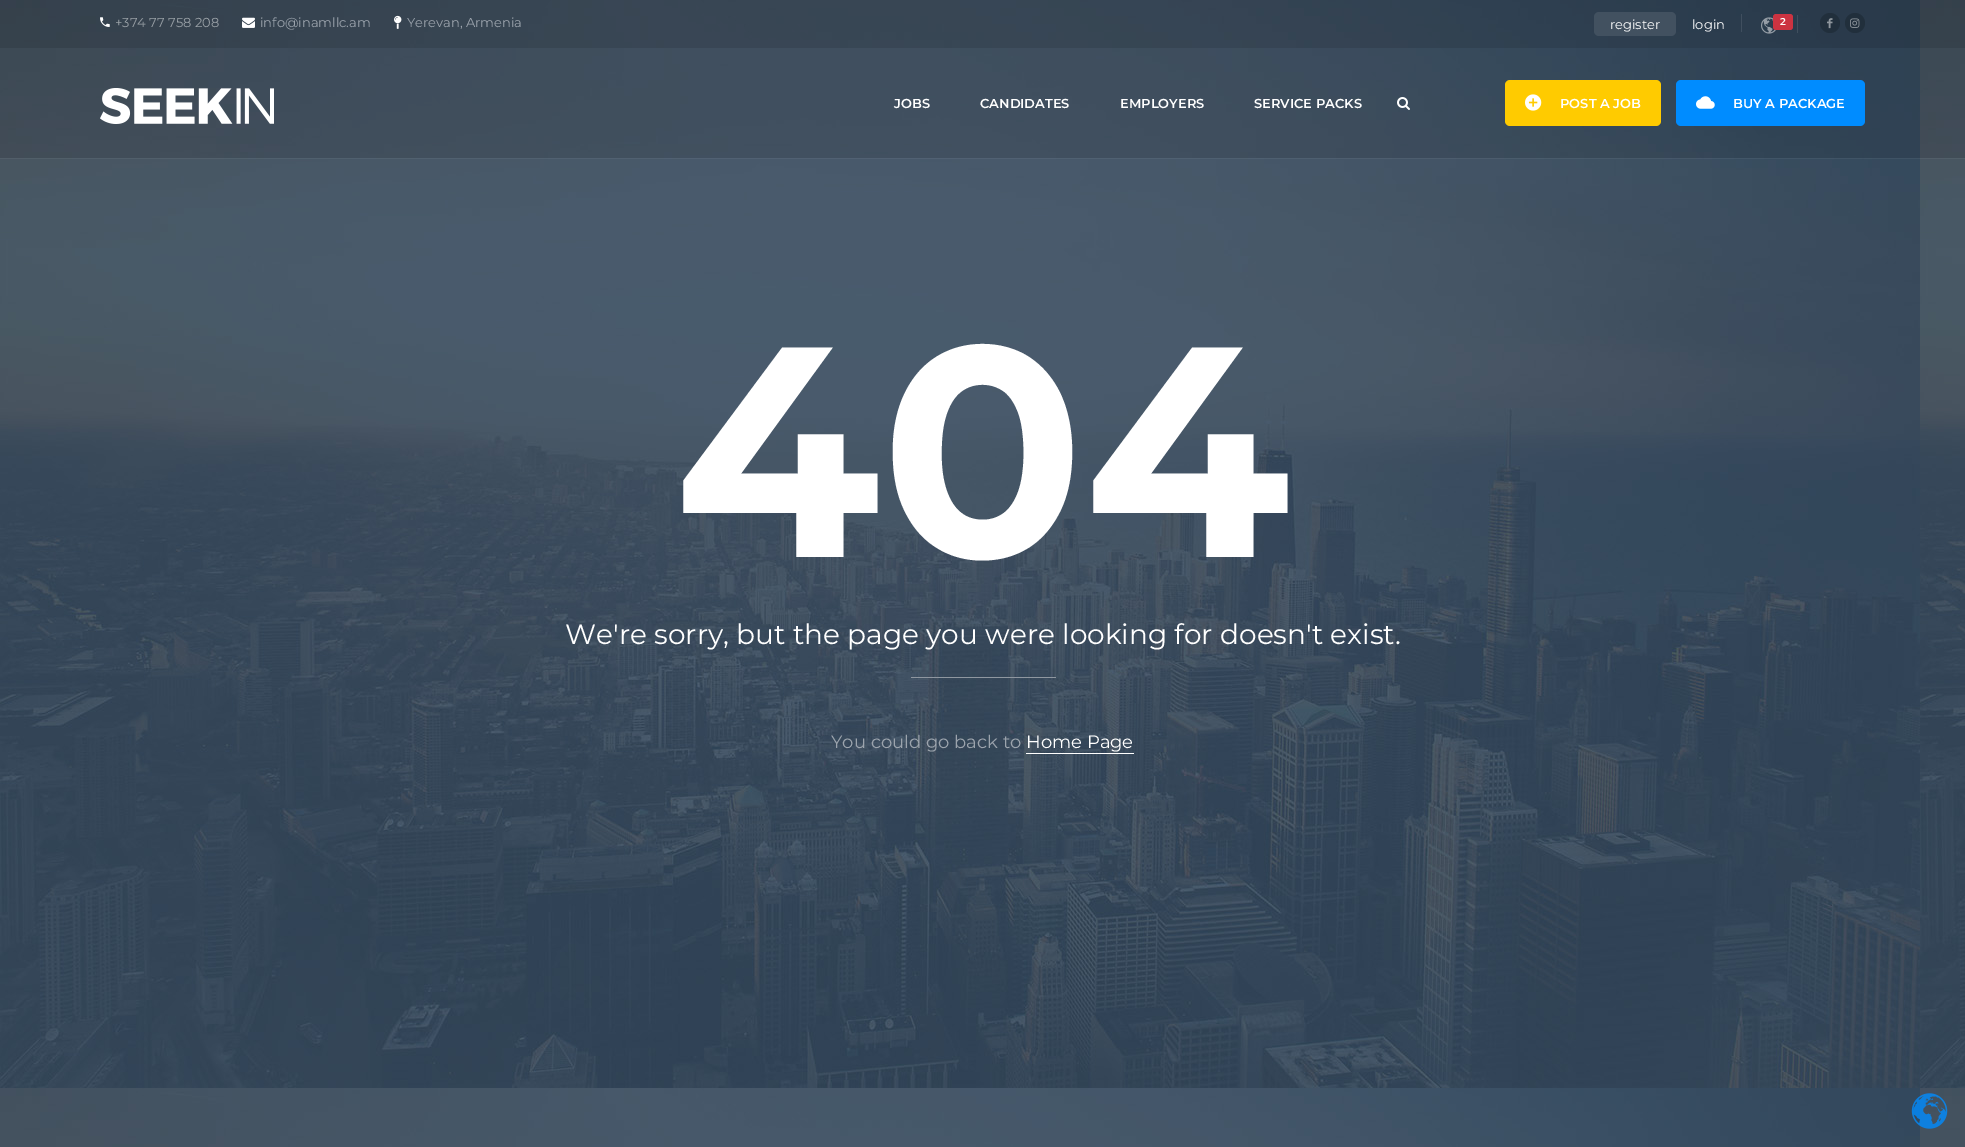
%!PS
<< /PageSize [1965 1147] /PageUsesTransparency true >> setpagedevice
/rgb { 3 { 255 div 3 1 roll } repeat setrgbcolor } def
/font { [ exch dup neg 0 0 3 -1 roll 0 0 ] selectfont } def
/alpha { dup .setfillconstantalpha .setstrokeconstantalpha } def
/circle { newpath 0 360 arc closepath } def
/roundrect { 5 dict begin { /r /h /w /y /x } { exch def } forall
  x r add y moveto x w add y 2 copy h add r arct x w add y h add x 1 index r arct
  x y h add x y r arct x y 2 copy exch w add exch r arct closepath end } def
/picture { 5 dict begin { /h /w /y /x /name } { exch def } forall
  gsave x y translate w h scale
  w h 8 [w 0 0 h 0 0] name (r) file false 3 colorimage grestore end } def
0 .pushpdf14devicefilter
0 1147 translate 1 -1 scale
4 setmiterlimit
255 255 255 rgb
0 0 1965 1147 rectfill
(img/1.rgb) 0 0 1965 1147 picture
0.05 alpha
0 158 1965 1 rectfill
0.2 alpha
0 0 0 rgb
0 0 1965 48 rectfill
1 alpha
(img/2.rgb) 100 17 10 10 picture
(img/3.rgb) 242 17 13 11 picture
(img/4.rgb) 394 15 8 14 picture
66 81 96 rgb
1594 12 82 24 5 roundrect fill
64 79 95 rgb
1741 14 1 18 rectfill
(img/5.rgb) 1761 17 15 17 picture
204 51 65 rgb
1773 14 20 16 3 roundrect fill
64 79 94 rgb
1797 15 1 18 rectfill
33 47 60 rgb
1830 23 10 circle fill
(img/6.rgb) 1827 18 6 11 picture
1855 23 10 circle fill
(img/7.rgb) 1850 18 10 10 picture
0.1 alpha
0 0 0 rgb
0 48 1965 110 rectfill
1 alpha
(img/8.rgb) 100 88 174 36 picture
(img/9.rgb) 1397 97 13 13 picture
255 203 0 rgb
1505 80 156 46 5 roundrect fill
(img/10.rgb) 1525 94 17 17 picture
0 140 255 rgb
1676 80 189 46 5 roundrect fill
(img/11.rgb) 1696 96 19 13 picture
143 151 160 rgb
911 677 145 1 rectfill
255 255 255 rgb
1026 753 108 1 rectfill
(img/12.rgb) 1911 1093 37 36 picture
/Montserrat-Regular 13 font
154 161 167 rgb
115 27 moveto (+374 77 758 208) show
156 164 173 rgb
260 27 moveto (info@inamllc.am) show
407 27 moveto (Yerevan, Armenia) show
255 255 255 rgb
1610 29 moveto (register) show
1692 29 moveto (login) show
/Montserrat-SemiBold 10 font
1780 25 moveto (2) show
/Montserrat-SemiBold 13 font
[
  [(JOBS) 894 108]
  [(CANDIDATES) 980 108]
  [(EMPLOYERS) 1120 108]
  [(SERVICE PACKS) 1254 108]
  [(POST A JOB) 1560 108]
  [(BUY A PACKAGE) 1733 108]
] { aload pop moveto show } forall
/Montserrat-Bold 300 font
674 557 moveto (404) show
/Montserrat-Regular 28 font
565 644 moveto (We're sorry, but the page you were looking for doesn't exist.) show
/Montserrat-Regular 18 font
156 164 173 rgb
831 748 moveto (You could go back to) show
255 255 255 rgb
1026 748 moveto (Home Page) show
.poppdf14devicefilter showpage
